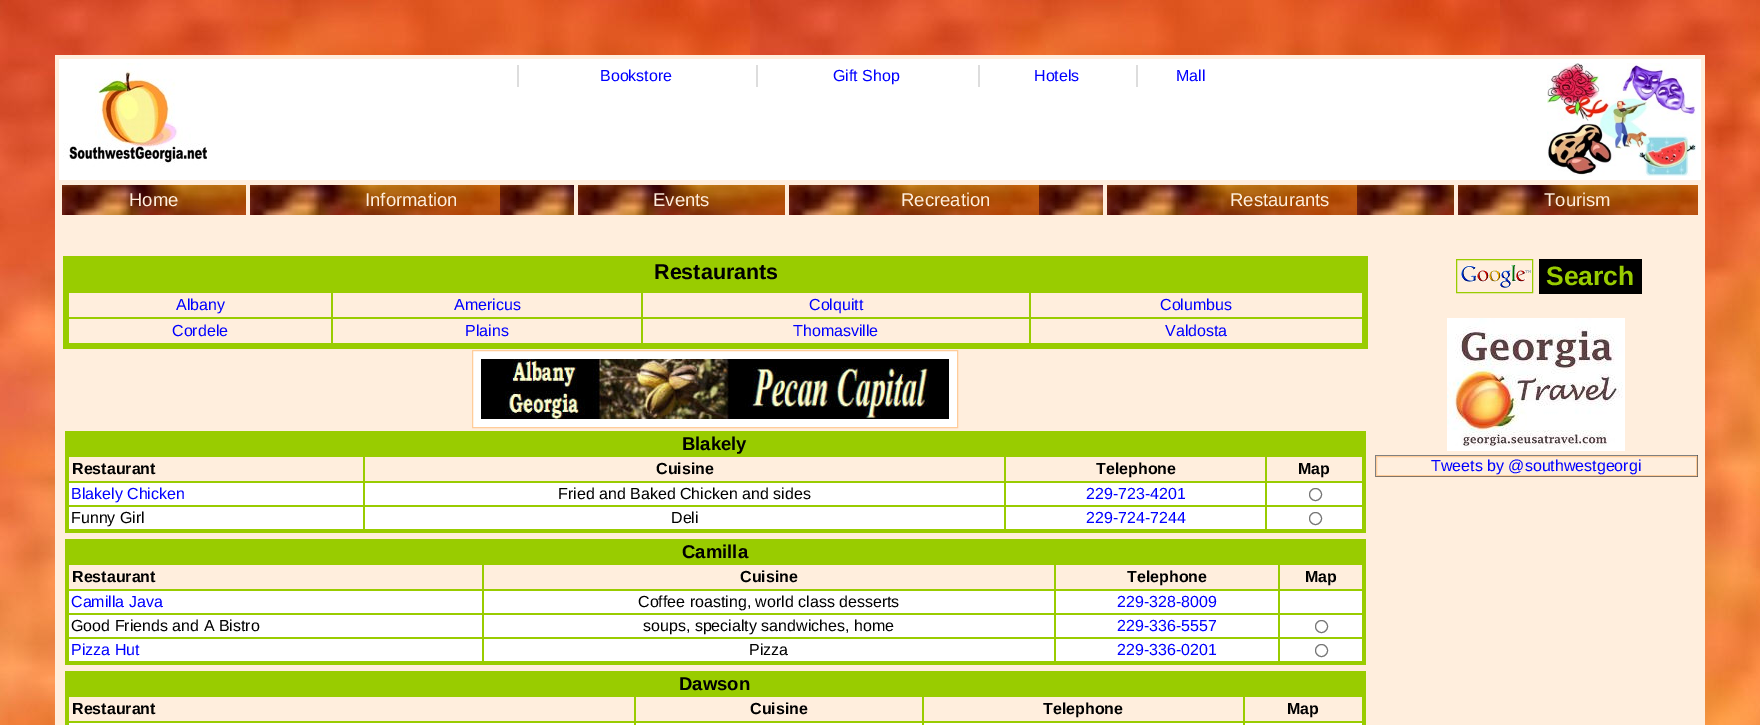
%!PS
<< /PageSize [1760 725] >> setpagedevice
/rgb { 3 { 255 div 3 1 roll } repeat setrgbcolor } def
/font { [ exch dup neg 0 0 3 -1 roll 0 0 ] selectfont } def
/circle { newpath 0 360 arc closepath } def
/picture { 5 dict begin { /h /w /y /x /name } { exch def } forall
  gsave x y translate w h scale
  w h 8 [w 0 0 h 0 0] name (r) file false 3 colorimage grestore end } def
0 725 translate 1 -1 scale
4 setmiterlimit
255 255 255 rgb
0 0 1760 725 rectfill
(img/1.rgb) 0 0 1760 725 picture
255 238 221 rgb
55 55 1650 670 rectfill
255 255 255 rgb
59 59 1642 121 rectfill
(img/2.rgb) 63 63 144 104 picture
[
  [517 65 2 22 221 221 221]
  [756 65 2 22 221 221 221]
  [978 65 2 22 221 221 221]
  [1136 65 2 22 221 221 221]
] { aload pop rgb rectfill } forall
(img/3.rgb) 1547 63 149 113 picture
(img/4.rgb) 62 185 184 30 picture
(img/5.rgb) 250 185 324 30 picture
(img/6.rgb) 578 185 207 30 picture
(img/7.rgb) 789 185 314 30 picture
(img/8.rgb) 1107 185 347 30 picture
(img/9.rgb) 1458 185 240 30 picture
[
  [63 256 1305 93 153 204 0]
  [69 293 262 24 255 238 221]
  [333 293 308 24 255 238 221]
  [643 293 386 24 255 238 221]
  [1031 293 331 24 255 238 221]
  [69 319 262 24 255 238 221]
  [333 319 308 24 255 238 221]
  [643 319 386 24 255 238 221]
  [1031 319 331 24 255 238 221]
] { aload pop rgb rectfill } forall
255 255 255 rgb
472.5 350.5 moveto 957.5 350.5 lineto 957.5 427.5 lineto 472.5 427.5 lineto closepath gsave fill grestore
255 204 153 rgb
stroke
(img/10.rgb) 481 359 468 60 picture
[
  [65 431 1301 102 153 204 0]
  [69 457 294 24 255 238 221]
  [365 457 639 24 255 238 221]
  [1006 457 259 24 255 238 221]
  [1267 457 95 24 255 238 221]
  [69 483 294 22 255 255 255]
  [365 483 639 22 255 255 255]
  [1006 483 259 22 255 255 255]
  [1267 483 95 22 255 255 255]
] { aload pop rgb rectfill } forall
118 118 118 rgb
1315.5 494.5 6 circle stroke
[
  [69 507 294 22 255 255 255]
  [365 507 639 22 255 255 255]
  [1006 507 259 22 255 255 255]
  [1267 507 95 22 255 255 255]
] { aload pop rgb rectfill } forall
118 118 118 rgb
1315.5 518.5 6 circle stroke
[
  [65 539 1301 126 153 204 0]
  [69 565 413 24 255 238 221]
  [484 565 570 24 255 238 221]
  [1056 565 222 24 255 238 221]
  [1280 565 82 24 255 238 221]
  [69 591 413 22 255 255 255]
  [484 591 570 22 255 255 255]
  [1056 591 222 22 255 255 255]
  [1280 591 82 22 255 255 255]
  [69 615 413 22 255 255 255]
  [484 615 570 22 255 255 255]
  [1056 615 222 22 255 255 255]
  [1280 615 82 22 255 255 255]
] { aload pop rgb rectfill } forall
118 118 118 rgb
1321.5 626.5 6 circle stroke
[
  [69 639 413 22 255 255 255]
  [484 639 570 22 255 255 255]
  [1056 639 222 22 255 255 255]
  [1280 639 82 22 255 255 255]
] { aload pop rgb rectfill } forall
118 118 118 rgb
1321.5 650.5 6 circle stroke
[
  [65 671 1301 54 153 204 0]
  [69 697 565 24 255 238 221]
  [636 697 286 24 255 238 221]
  [924 697 319 24 255 238 221]
  [1245 697 117 24 255 238 221]
  [69 723 565 2 255 255 255]
  [636 723 286 2 255 255 255]
  [924 723 319 2 255 255 255]
  [1245 723 117 2 255 255 255]
] { aload pop rgb rectfill } forall
153 204 0 rgb
1456.5 259.5 76 33 rectstroke
(img/11.rgb) 1461 265 70 23 picture
0 0 0 rgb
1539 259 103 35 rectfill
(img/12.rgb) 1447 318 178 133 picture
[
  [1375 455 323 1 128 128 128]
  [1697 455 1 22 85 85 85]
  [1375 476 323 1 85 85 85]
  [1375 455 1 22 128 128 128]
] { aload pop rgb rectfill } forall
255 204 153 rgb
1376.5 456.5 320 19 rectstroke
/LiberationSans-Regular 16 font
0 0 255 rgb
[
  [(Bookstore) 600 81]
  [(Gift Shop) 833 81]
  [(Hotels) 1034 81]
  [(Mall) 1176 81]
] { aload pop moveto show } forall
/LiberationSans-Regular 18.5 font
255 238 221 rgb
[
  [(Home) 129 206]
  [(Information) 365 206]
  [(Events) 653 206]
  [(Recreation) 901 206]
  [(Restaurants) 1230 206]
  [(Tourism) 1544 206]
] { aload pop moveto show } forall
/LiberationSans-Bold 21.5 font
0 0 0 rgb
654 279 moveto (Restaurants) show
/LiberationSans-Regular 16 font
0 0 255 rgb
[
  [(Albany) 176 310]
  [(Americus) 454 310]
  [(Colquitt) 809 310]
  [(Columbus) 1160 310]
  [(Cordele) 172 336]
  [(Plains) 465 336]
  [(Thomasville) 793 336]
  [(Valdosta) 1165 336]
] { aload pop moveto show } forall
/LiberationSans-Bold 18.5 font
0 0 0 rgb
682 450 moveto (Blakely) show
/LiberationSans-Bold 16 font
[
  [(Restaurant) 72 474]
  [(Cuisine) 656 474]
  [(Telephone) 1096 474]
  [(Map) 1298 474]
] { aload pop moveto show } forall
/LiberationSans-Regular 16 font
0 0 255 rgb
71 499 moveto (Blakely Chicken) show
0 0 0 rgb
558 499 moveto (Fried and Baked Chicken and sides) show
0 0 255 rgb
1086 499 moveto (229-723-4201) show
0 0 0 rgb
71 523 moveto (Funny Girl) show
671 523 moveto (Deli) show
0 0 255 rgb
1086 523 moveto (229-724-7244) show
/LiberationSans-Bold 18.5 font
0 0 0 rgb
682 558 moveto (Camilla) show
/LiberationSans-Bold 16 font
[
  [(Restaurant) 72 582]
  [(Cuisine) 740 582]
  [(Telephone) 1127 582]
  [(Map) 1305 582]
] { aload pop moveto show } forall
/LiberationSans-Regular 16 font
0 0 255 rgb
71 607 moveto (Camilla Java) show
0 0 0 rgb
638 607 moveto (Coffee roasting, world class desserts) show
0 0 255 rgb
1117 607 moveto (229-328-8009) show
0 0 0 rgb
71 631 moveto (Good Friends and A Bistro) show
643 631 moveto (soups, specialty sandwiches, home) show
0 0 255 rgb
1117 631 moveto (229-336-5557) show
71 655 moveto (Pizza Hut) show
0 0 0 rgb
749 655 moveto (Pizza) show
0 0 255 rgb
1117 655 moveto (229-336-0201) show
/LiberationSans-Bold 18.5 font
0 0 0 rgb
679 690 moveto (Dawson) show
/LiberationSans-Bold 16 font
[
  [(Restaurant) 72 714]
  [(Cuisine) 750 714]
  [(Telephone) 1043 714]
  [(Map) 1287 714]
] { aload pop moveto show } forall
/LiberationSans-Bold 26.5 font
153 204 0 rgb
1546 285 moveto (Search) show
/LiberationSans-Regular 16 font
0 0 255 rgb
1431 471 moveto (Tweets by @southwestgeorgi) show
showpage
